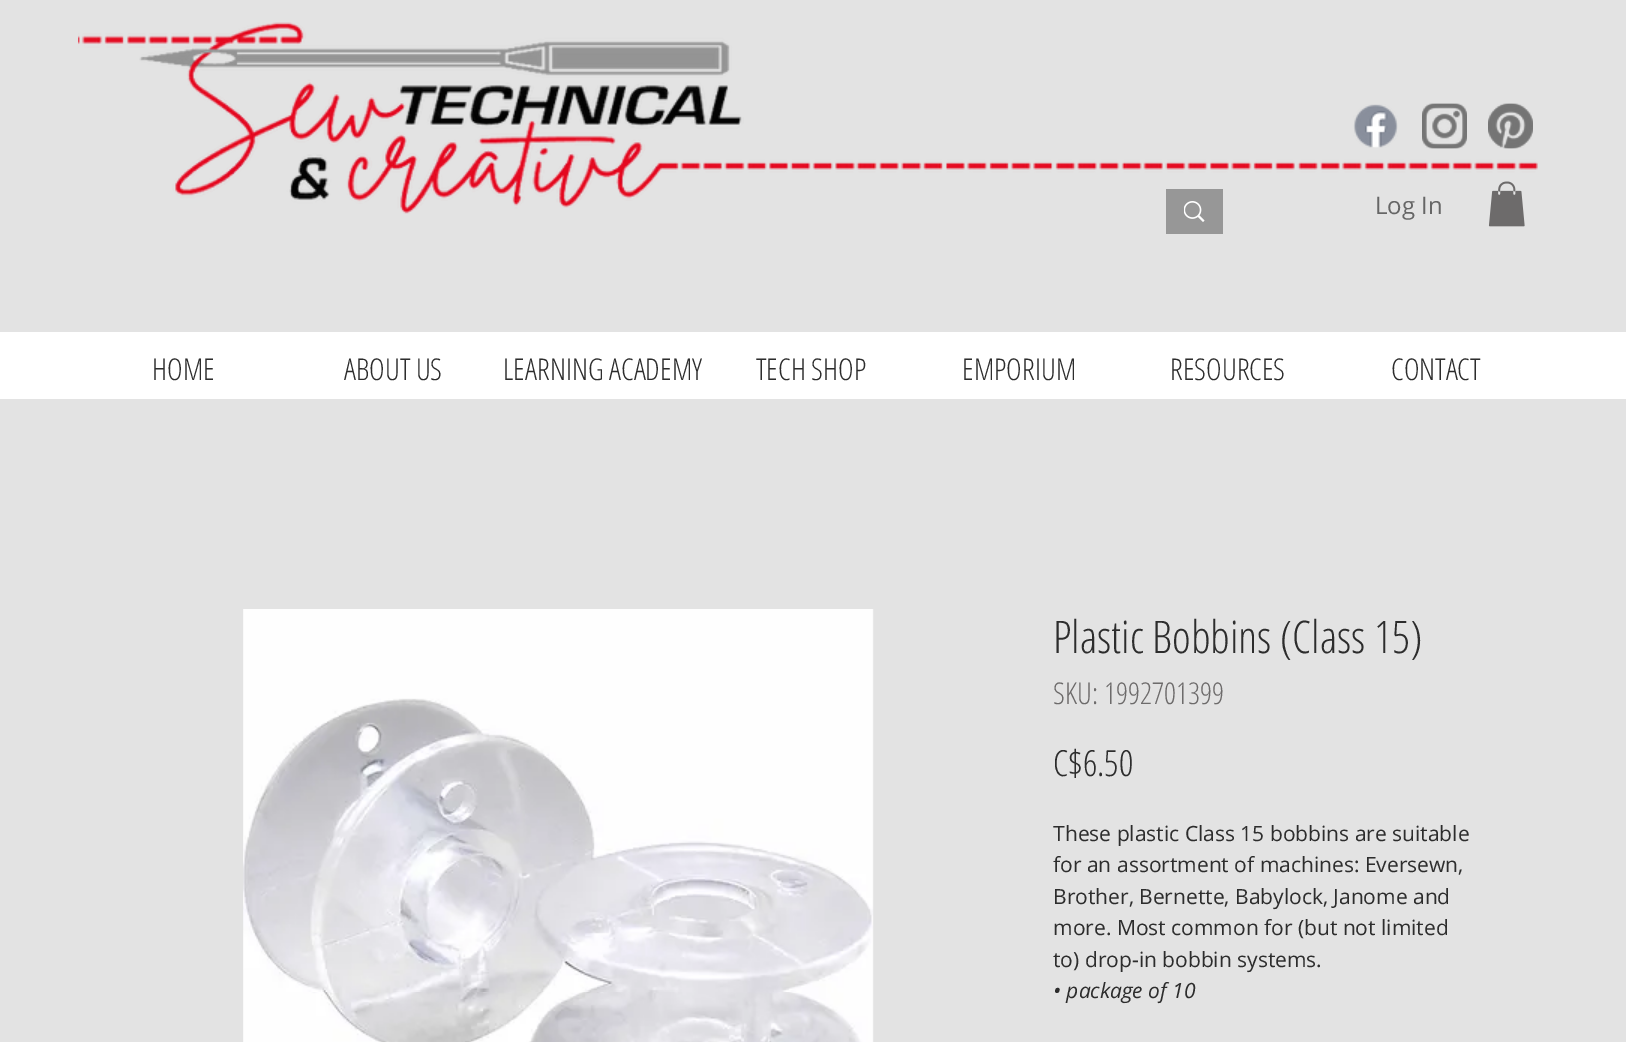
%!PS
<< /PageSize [1626 1042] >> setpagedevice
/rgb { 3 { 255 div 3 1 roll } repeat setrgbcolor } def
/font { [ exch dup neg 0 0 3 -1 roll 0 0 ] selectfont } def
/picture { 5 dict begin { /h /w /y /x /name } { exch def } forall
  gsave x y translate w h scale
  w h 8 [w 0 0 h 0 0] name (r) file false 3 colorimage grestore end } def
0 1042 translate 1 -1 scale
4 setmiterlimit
227 227 227 rgb
0 0 1626 1042 rectfill
(img/1.rgb) 78 22 1460 192 picture
(img/2.rgb) 1353 104 45 44 picture
(img/3.rgb) 1422 103 45 46 picture
(img/4.rgb) 1488 103 45 46 picture
151 151 151 rgb
1166 189 57 45 rectfill
(img/5.rgb) 1184 201 21 21 picture
(img/6.rgb) 1488 181 37 46 picture
255 255 255 rgb
0 332 1626 67 rectfill
(img/7.rgb) 243 609 631 433 picture
/OpenSans-Regular 24 font
102 102 102 rgb
1375 214 moveto (Log In) show
/OpenSansCondensed-Light 30 font
45 45 45 rgb
[
  [(HOME) 152 380]
  [(ABOUT US) 344 380]
  [(LEARNING ACADEMY) 503 380]
  [(TECH SHOP) 756 380]
  [(EMPORIUM) 962 380]
  [(RESOURCES) 1170 380]
  [(CONTACT) 1391 380]
] { aload pop moveto show } forall
/OpenSansCondensed-Light 45 font
1053 653 moveto (Plastic Bobbins \(Class 15\)) show
/OpenSansCondensed-Light 30 font
109 107 107 rgb
1053 704 moveto (SKU: 1992701399) show
/OpenSansCondensed-Light 36 font
45 45 45 rgb
1053 776 moveto (C$6.50) show
/OpenSans-Regular 21 font
[
  [(These plastic Class 15 bobbins are suitable) 1053 841]
  [(for an assortment of machines: Eversewn,) 1053 872]
  [(Brother, Bernette, Babylock, Janome and) 1053 904]
  [(more. Most common for \(but not limited) 1053 935]
  [(to\) drop-in bobbin systems.) 1053 967]
] { aload pop moveto show } forall
/OpenSans-Italic 21 font
1053 998 moveto (• package of 10) show
showpage
